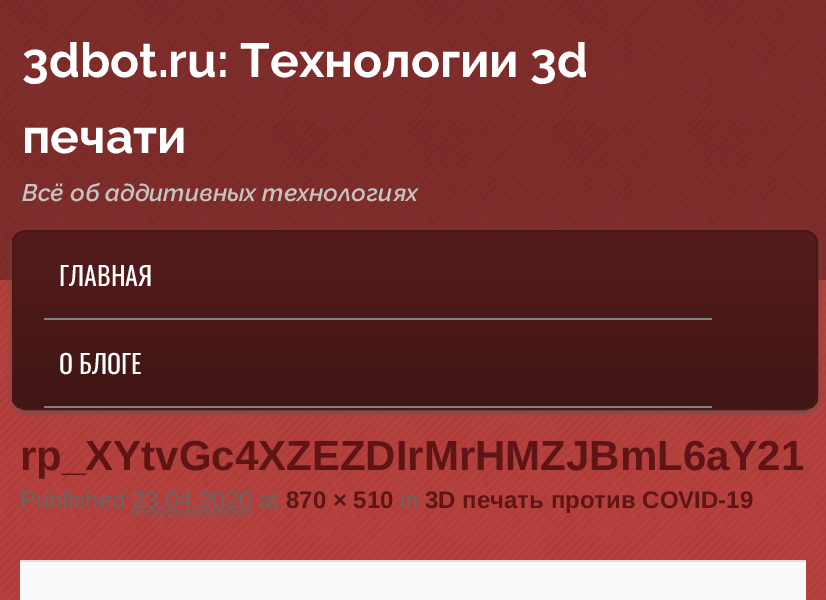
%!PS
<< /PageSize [826 600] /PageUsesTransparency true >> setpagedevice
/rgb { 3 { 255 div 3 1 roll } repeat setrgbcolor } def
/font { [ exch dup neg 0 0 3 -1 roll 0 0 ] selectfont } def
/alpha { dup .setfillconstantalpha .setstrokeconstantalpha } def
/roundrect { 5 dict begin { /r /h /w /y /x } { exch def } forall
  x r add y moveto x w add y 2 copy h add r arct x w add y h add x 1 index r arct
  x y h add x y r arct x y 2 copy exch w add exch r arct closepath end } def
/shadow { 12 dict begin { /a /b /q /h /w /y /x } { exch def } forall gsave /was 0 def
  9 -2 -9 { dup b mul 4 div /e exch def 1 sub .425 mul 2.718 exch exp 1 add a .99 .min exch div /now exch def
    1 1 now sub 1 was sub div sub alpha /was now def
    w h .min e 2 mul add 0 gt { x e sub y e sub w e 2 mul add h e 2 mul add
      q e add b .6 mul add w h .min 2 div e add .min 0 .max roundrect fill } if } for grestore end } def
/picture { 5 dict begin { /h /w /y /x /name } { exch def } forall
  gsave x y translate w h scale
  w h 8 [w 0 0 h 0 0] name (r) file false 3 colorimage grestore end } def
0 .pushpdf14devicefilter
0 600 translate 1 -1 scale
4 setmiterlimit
255 255 255 rgb
0 0 826 600 rectfill
(img/1.rgb) 0 0 826 600 picture
0.3 alpha
0 0 0 rgb
0 0 826 280 rectfill
1 alpha
85 85 85 rgb
12 232 806 180 14 3 1 shadow
gsave
12 230 806 180 14 roundrect clip newpath
gsave 12 232 moveto 818 232 lineto 818 408 lineto 12 408 lineto closepath clip newpath
<< /ShadingType 2 /ColorSpace /DeviceRGB /Coords [415 232 415 408] /Extend [true true] /Function << /FunctionType 2 /Domain [0 1] /C0 [0.337 0.11 0.11] /C1 [0.247 0.082 0.082] /N 1 >> >> shfill grestore
grestore
79 21 21 rgb
2 setlinewidth
13 231 804 178 13 roundrect stroke
128 128 128 rgb
44 318 668 2 rectfill
44 406 668 2 rectfill
102 102 102 rgb
[2 2] 0 setdash
132.5 511 moveto 252.5 511 lineto stroke
132 515 moveto 252 515 lineto stroke
249 249 249 rgb
20 562 786 38 rectfill
221 221 221 rgb
20 560 786 2 rectfill
/Raleway-Bold 48 font
255 255 255 rgb
22 77 moveto (3dbot.ru: Технологии 3d) show
22 153 moveto (печати) show
/Raleway-SemiBoldItalic 24 font
196 196 196 rgb
22 201 moveto (Всё об аддитивных технологиях) show
/Oswald-Regular 26 font
255 255 255 rgb
59 286 moveto (ГЛАВНАЯ) show
59 374 moveto (О БЛОГЕ) show
/LiberationSans-Bold 42 font
95 21 21 rgb
20 470 moveto (rp_XYtvGc4XZEZDIrMrHMZJBmL6aY21) show
/LiberationSans-Regular 24 font
102 102 102 rgb
20 508 moveto (Published 23.04.2020 at) show
/LiberationSans-Bold 24 font
95 21 21 rgb
286 508 moveto (870 × 510) show
/LiberationSans-Regular 24 font
102 102 102 rgb
400 508 moveto (in) show
/LiberationSans-Bold 24 font
95 21 21 rgb
425 508 moveto (3D печать против COVID-19) show
.poppdf14devicefilter showpage
